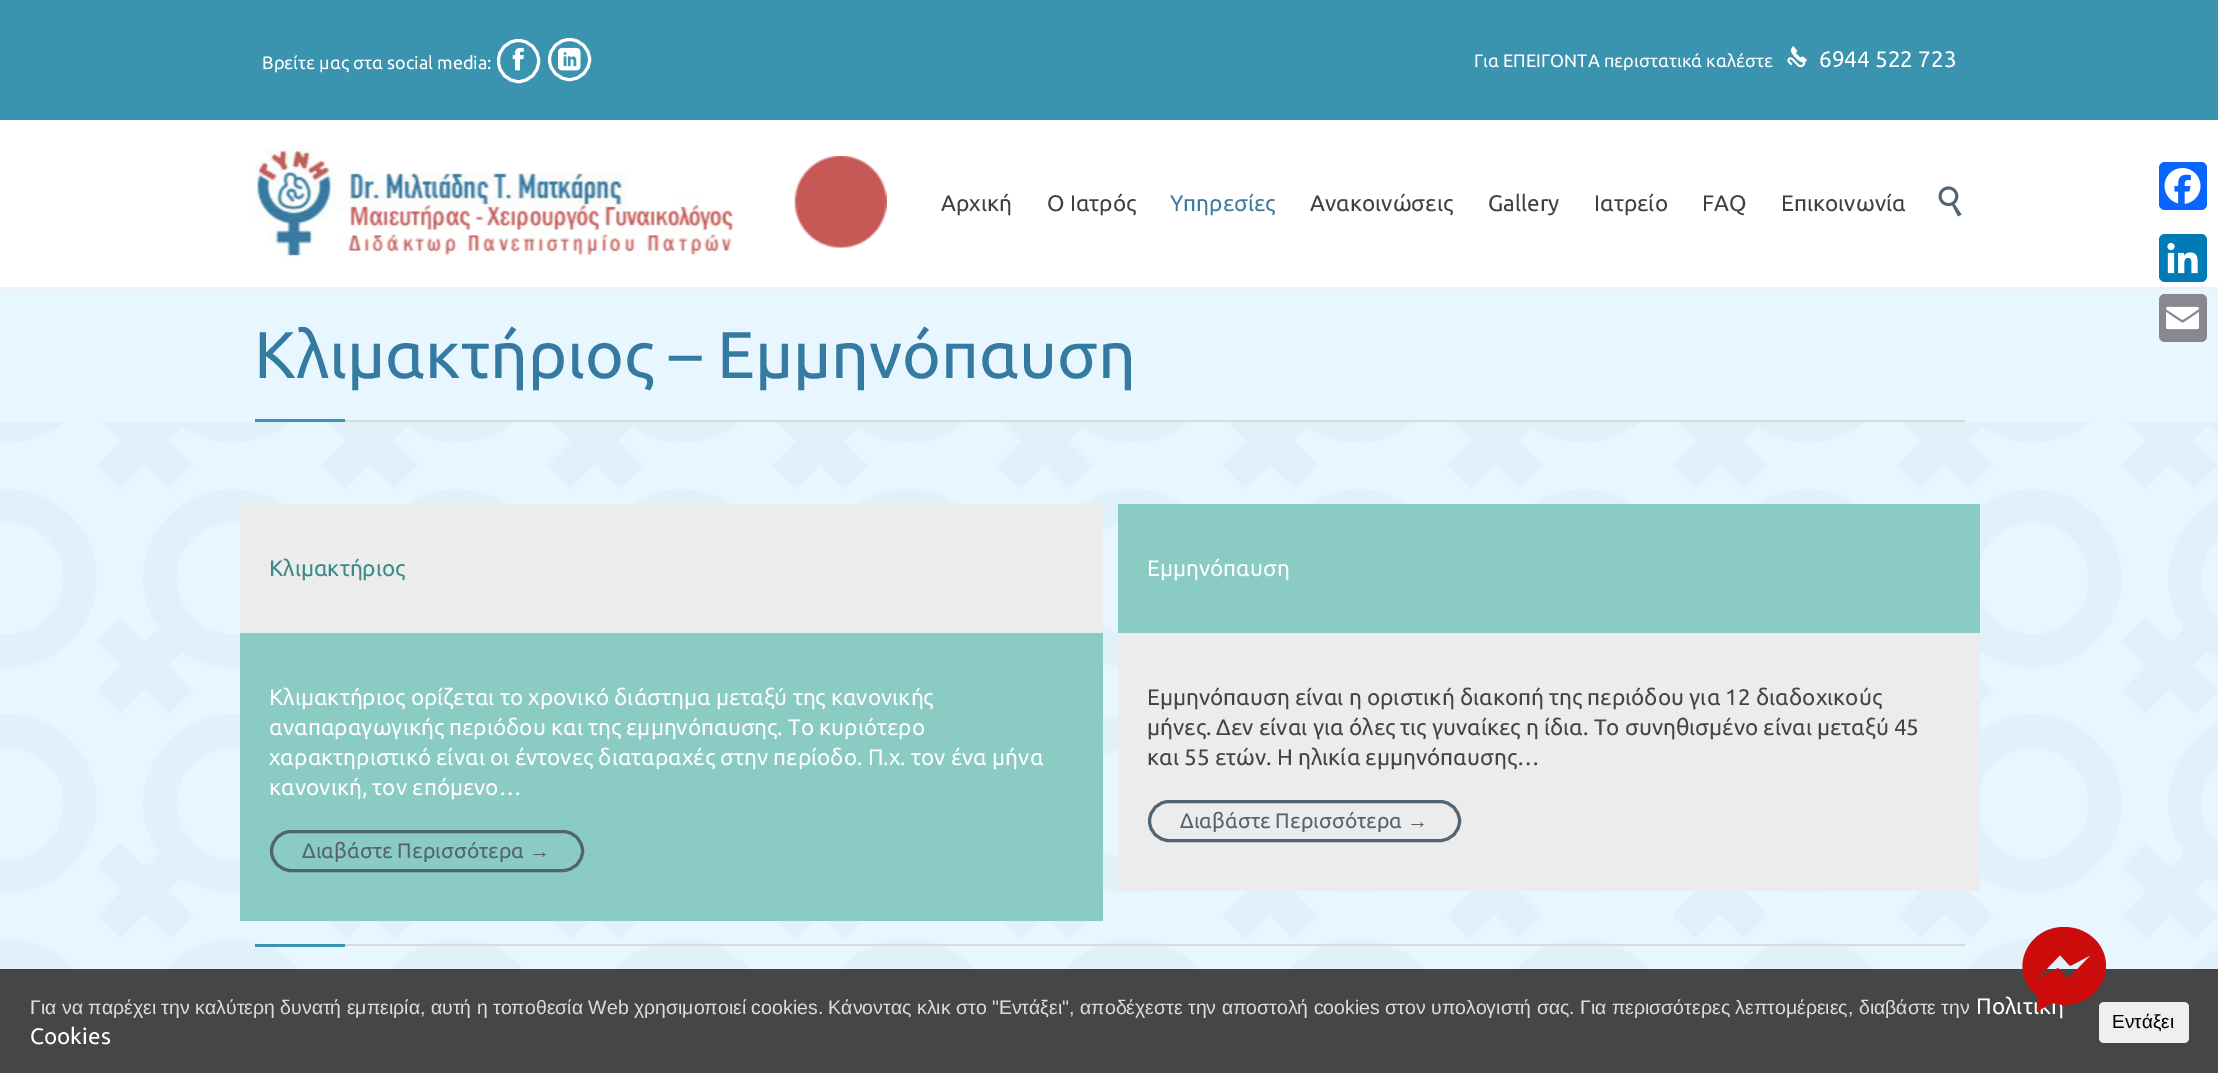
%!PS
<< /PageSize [2218 1073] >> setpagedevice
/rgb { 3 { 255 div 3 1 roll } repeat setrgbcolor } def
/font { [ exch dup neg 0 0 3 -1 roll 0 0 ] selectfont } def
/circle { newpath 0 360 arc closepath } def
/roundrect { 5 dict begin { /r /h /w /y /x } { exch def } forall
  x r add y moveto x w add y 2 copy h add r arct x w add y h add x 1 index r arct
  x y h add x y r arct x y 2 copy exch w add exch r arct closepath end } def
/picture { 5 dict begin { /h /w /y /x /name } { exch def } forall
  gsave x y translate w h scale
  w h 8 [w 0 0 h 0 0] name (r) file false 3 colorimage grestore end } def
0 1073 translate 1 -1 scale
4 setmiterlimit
231 246 255 rgb
0 0 2218 1073 rectfill
[
  [0 120 2218 167 255 255 255]
  [0 287 2218 2 240 240 241]
  [0 0 2218 120 58 148 175]
] { aload pop rgb rectfill } forall
255 255 255 rgb
3 setlinewidth
498.5 40.5 40 41 20 roundrect stroke
(img/1.rgb) 512 47 12 24 picture
569.5 59.5 20 circle stroke
(img/2.rgb) 558 47 23 24 picture
(img/3.rgb) 1787 46 20 22 picture
(img/4.rgb) 254 148 479 109 picture
(img/5.rgb) 794 156 93 92 picture
(img/6.rgb) 1938 186 24 31 picture
218 218 222 rgb
345 420 1620 2 rectfill
58 148 175 rgb
255 419 90 3 rectfill
(img/7.rgb) 0 422 2218 547 picture
236 236 236 rgb
240 504 863 129 rectfill
138 203 195 rgb
240 633 863 288 rectfill
82 99 113 rgb
271.5 831.5 311 39 19.5 roundrect stroke
138 203 195 rgb
1118 504 862 129 rectfill
236 236 236 rgb
1118 633 862 258 rectfill
82 99 113 rgb
1149.5 801.5 310 39 19.5 roundrect stroke
218 218 222 rgb
345 944 1620 2 rectfill
58 148 175 rgb
255 944 90 3 rectfill
8 102 255 rgb
2159 162 48 48 6 roundrect fill
(img/8.rgb) 2164 168 37 36 picture
0 123 181 rgb
2159 234 48 48 6 roundrect fill
(img/9.rgb) 2167 242 31 32 picture
136 137 144 rgb
2159 294 48 48 6 roundrect fill
(img/10.rgb) 2166 306 33 24 picture
70 70 70 rgb
0 969 2218 104 rectfill
239 239 239 rgb
2099 1002 90 41 5 roundrect fill
/Ubuntu-Regular 18 font
255 255 255 rgb
262 69 moveto (Βρείτε μας στα social media:) show
1474 67 moveto (Για ΕΠΕΙΓΟΝΤΑ περιστατικά καλέστε) show
/Ubuntu-Regular 22.5 font
1819 67 moveto (6944 522 723) show
62 64 67 rgb
941 211 moveto (Αρχική) show
1047 211 moveto (Ο Ιατρός) show
60 124 159 rgb
1170 211 moveto (Υπηρεσίες) show
62 64 67 rgb
[
  [(Ανακοινώσεις) 1310 211]
  [(Gallery) 1488 211]
  [(Ιατρείο) 1594 211]
  [(FAQ) 1702 211]
  [(Επικοινωνία) 1781 211]
] { aload pop moveto show } forall
/Ubuntu-Regular 66 font
53 122 161 rgb
254 378 moveto (Κλιμακτήριος – Εμμηνόπαυση) show
/Ubuntu-Regular 22.5 font
59 138 135 rgb
269 576 moveto (Κλιμακτήριος) show
255 255 255 rgb
[
  [(Κλιμακτήριος ορίζεται το χρονικό διάστημα μεταξύ της κανονικής) 269 705]
  [(αναπαραγωγικής περιόδου και της εμμηνόπαυσης. Το κυριότερο) 269 735]
  [(χαρακτηριστικό είναι οι έντονες διαταραχές στην περίοδο. Π.χ. τον ένα μήνα) 269 765]
  [(κανονική, τον επόμενο…) 269 795]
] { aload pop moveto show } forall
/Ubuntu-Regular 21 font
82 99 113 rgb
302 858 moveto (Διαβάστε Περισσότερα) show
/LiberationSerif-Regular 21 font
529 858 moveto (→) show
/Ubuntu-Regular 22.5 font
255 255 255 rgb
1147 576 moveto (Εμμηνόπαυση) show
68 68 68 rgb
[
  [(Εμμηνόπαυση είναι η οριστική διακοπή της περιόδου για 12 διαδοχικούς) 1147 705]
  [(μήνες. Δεν είναι για όλες τις γυναίκες η ίδια. Το συνηθισμένο είναι μεταξύ 45) 1147 735]
  [(και 55 ετών. Η ηλικία εμμηνόπαυσης…) 1147 765]
] { aload pop moveto show } forall
/Ubuntu-Regular 21 font
82 99 113 rgb
1180 828 moveto (Διαβάστε Περισσότερα) show
/LiberationSerif-Regular 21 font
1407 828 moveto (→) show
/LiberationSans-Regular 19.5 font
221 221 221 rgb
30 1014 moveto (Για να παρέχει την καλύτερη δυνατή εμπειρία, αυτή η τοποθεσία Web χρησιμοποιεί cookies. Κάνοντας κλικ στο "Εντάξει", αποδέχεστε την αποστολή cookies στον υπολογιστή σας. Για περισσότερες λεπτομέρειες, διαβάστε την) show
/Ubuntu-Regular 22.5 font
255 255 255 rgb
1976 1014 moveto (Πολιτική) show
204 11 11 rgb
2064 927 moveto 2026 927 2007 973 2038 996 curveto 2038 1011 lineto 2052 1003 lineto 2056 1004 2060 1005 2064 1005 curveto 2087 1005 2106 987 2106 966 curveto 2106 944 2087 927 2064 927 curveto closepath 2068 979 moveto 2058 968 lineto 2037 979 lineto 2060 955 lineto 2070 966 lineto 2091 955 lineto closepath fill
255 255 255 rgb
30 1044 moveto (Cookies) show
/LiberationSans-Regular 19 font
0 0 0 rgb
2112 1028 moveto (Εντάξει) show
showpage
